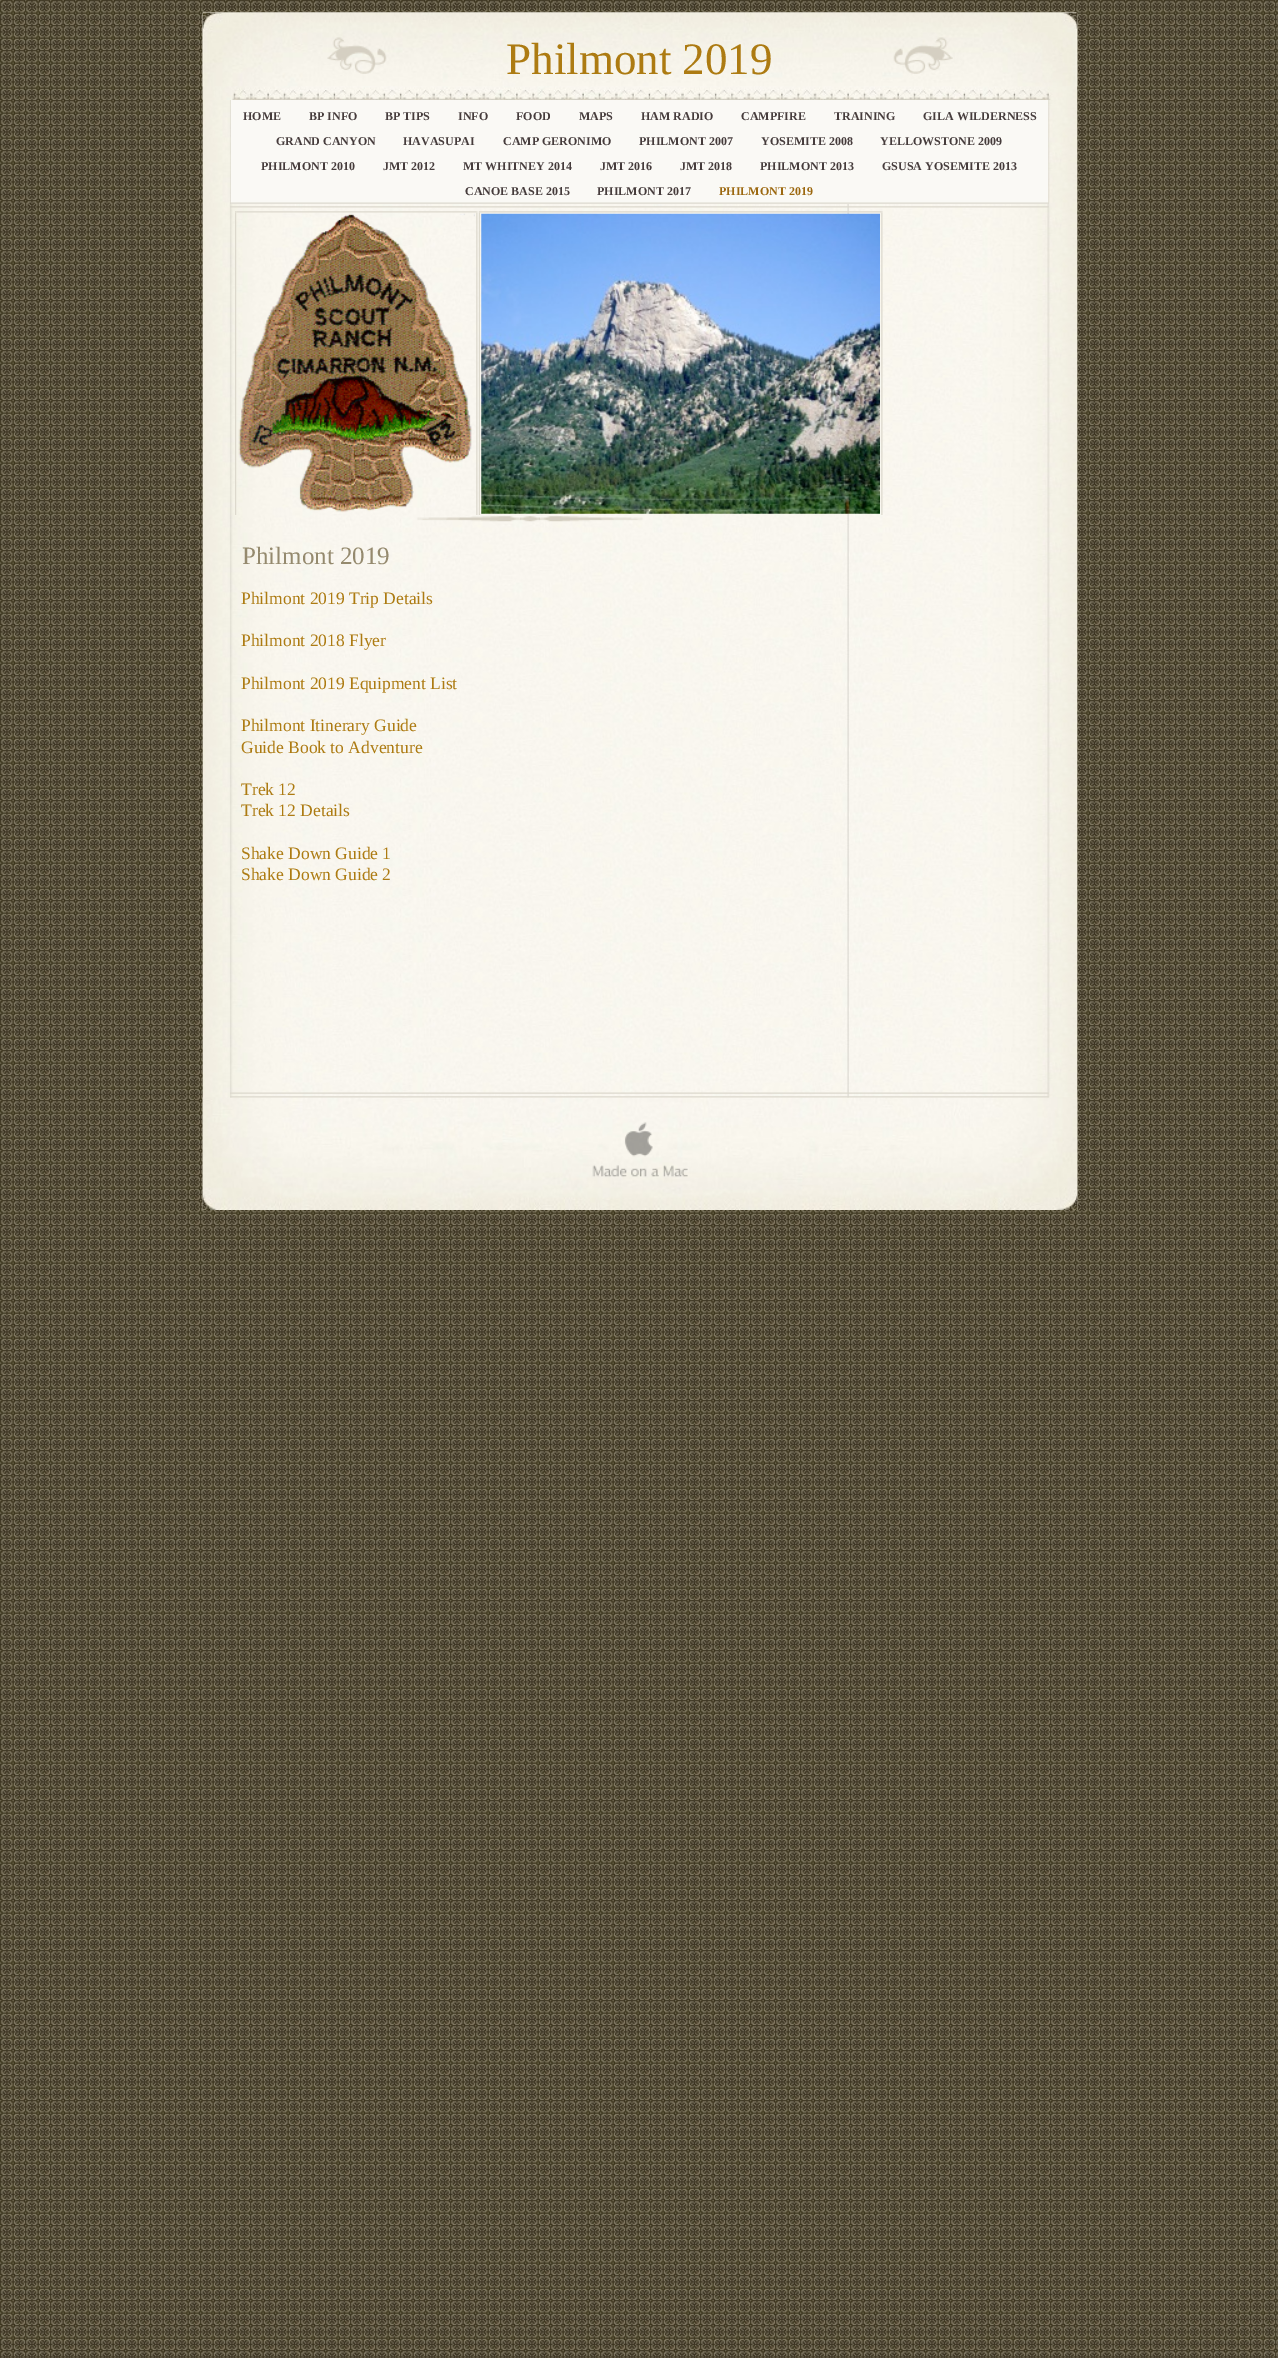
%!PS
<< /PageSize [1278 2358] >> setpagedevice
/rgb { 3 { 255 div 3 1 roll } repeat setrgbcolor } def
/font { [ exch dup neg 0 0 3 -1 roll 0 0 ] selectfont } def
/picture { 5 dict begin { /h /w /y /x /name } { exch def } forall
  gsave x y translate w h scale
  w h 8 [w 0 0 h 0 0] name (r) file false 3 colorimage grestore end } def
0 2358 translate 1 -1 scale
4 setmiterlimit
255 255 255 rgb
0 0 1278 2358 rectfill
(img/1.rgb) 0 0 1278 2358 picture
(img/2.rgb) 202 12 876 1198 picture
(img/6.rgb) 202 12 875 88 picture
(img/3.rgb) 202 12 876 75 picture
(img/4.rgb) 327 37 60 37 picture
(img/5.rgb) 893 37 60 37 picture
250 249 245 rgb
231 100 817 104 rectfill
(img/7.rgb) 230 202 819 2 picture
(img/8.rgb) 230 206 819 2 picture
(img/11.rgb) 235 212 2 303 picture
(img/9.rgb) 235 211 2 2 picture
(img/10.rgb) 236 211 241 2 picture
(img/12.rgb) 476 211 2 2 picture
(img/13.rgb) 238 213 237 300 picture
(img/14.rgb) 476 212 2 303 picture
(img/17.rgb) 478 212 2 303 picture
(img/15.rgb) 478 211 2 2 picture
(img/16.rgb) 480 211 402 2 picture
(img/18.rgb) 881 211 2 2 picture
(img/19.rgb) 481 213 399 301 picture
(img/20.rgb) 881 212 2 303 picture
(img/21.rgb) 417 516 226 6 picture
(img/22.rgb) 230 1092 819 2 picture
(img/24.rgb) 202 1097 876 113 picture
(img/23.rgb) 230 1096 819 2 picture
(img/25.rgb) 592 1122 96 55 picture
/LiberationSerif-Regular 45 font
173 123 18 rgb
506 74 moveto (Philmont 2019) show
/LiberationSerif-Bold 12 font
70 60 60 rgb
[
  [(HOME) 243 120]
  [(BP INFO) 309 120]
  [(BP TIPS) 385 120]
  [(INFO) 458 120]
  [(FOOD) 516 120]
  [(MAPS) 579 120]
  [(HAM RADIO) 641 120]
  [(CAMPFIRE) 741 120]
  [(TRAINING) 834 120]
  [(GILA WILDERNESS) 923 120]
  [(GRAND CANYON) 276 145]
  [(HAVASUPAI) 403 145]
  [(CAMP GERONIMO) 503 145]
  [(PHILMONT 2007) 639 145]
  [(YOSEMITE 2008) 761 145]
  [(YELLOWSTONE 2009) 880 145]
  [(PHILMONT 2010) 261 170]
  [(JMT 2012) 383 170]
  [(MT WHITNEY 2014) 463 170]
  [(JMT 2016) 600 170]
  [(JMT 2018) 680 170]
  [(PHILMONT 2013) 760 170]
  [(GSUSA YOSEMITE 2013) 882 170]
  [(CANOE BASE 2015) 465 195]
  [(PHILMONT 2017) 597 195]
] { aload pop moveto show } forall
156 104 16 rgb
719 195 moveto (PHILMONT 2019) show
/LiberationSerif-Regular 25 font
149 138 110 rgb
242 564 moveto (Philmont 2019) show
/LiberationSerif-Regular 17.5 font
173 123 18 rgb
[
  [(Philmont 2019 Trip Details) 241 604]
  [(Philmont 2018 Flyer) 241 646]
  [(Philmont 2019 Equipment List) 241 689]
  [(Philmont Itinerary Guide) 241 731]
  [(Guide Book to Adventure) 241 753]
  [(Trek 12) 241 795]
  [(Trek 12 Details) 241 816]
  [(Shake Down Guide 1) 241 859]
  [(Shake Down Guide 2) 241 880]
] { aload pop moveto show } forall
showpage
